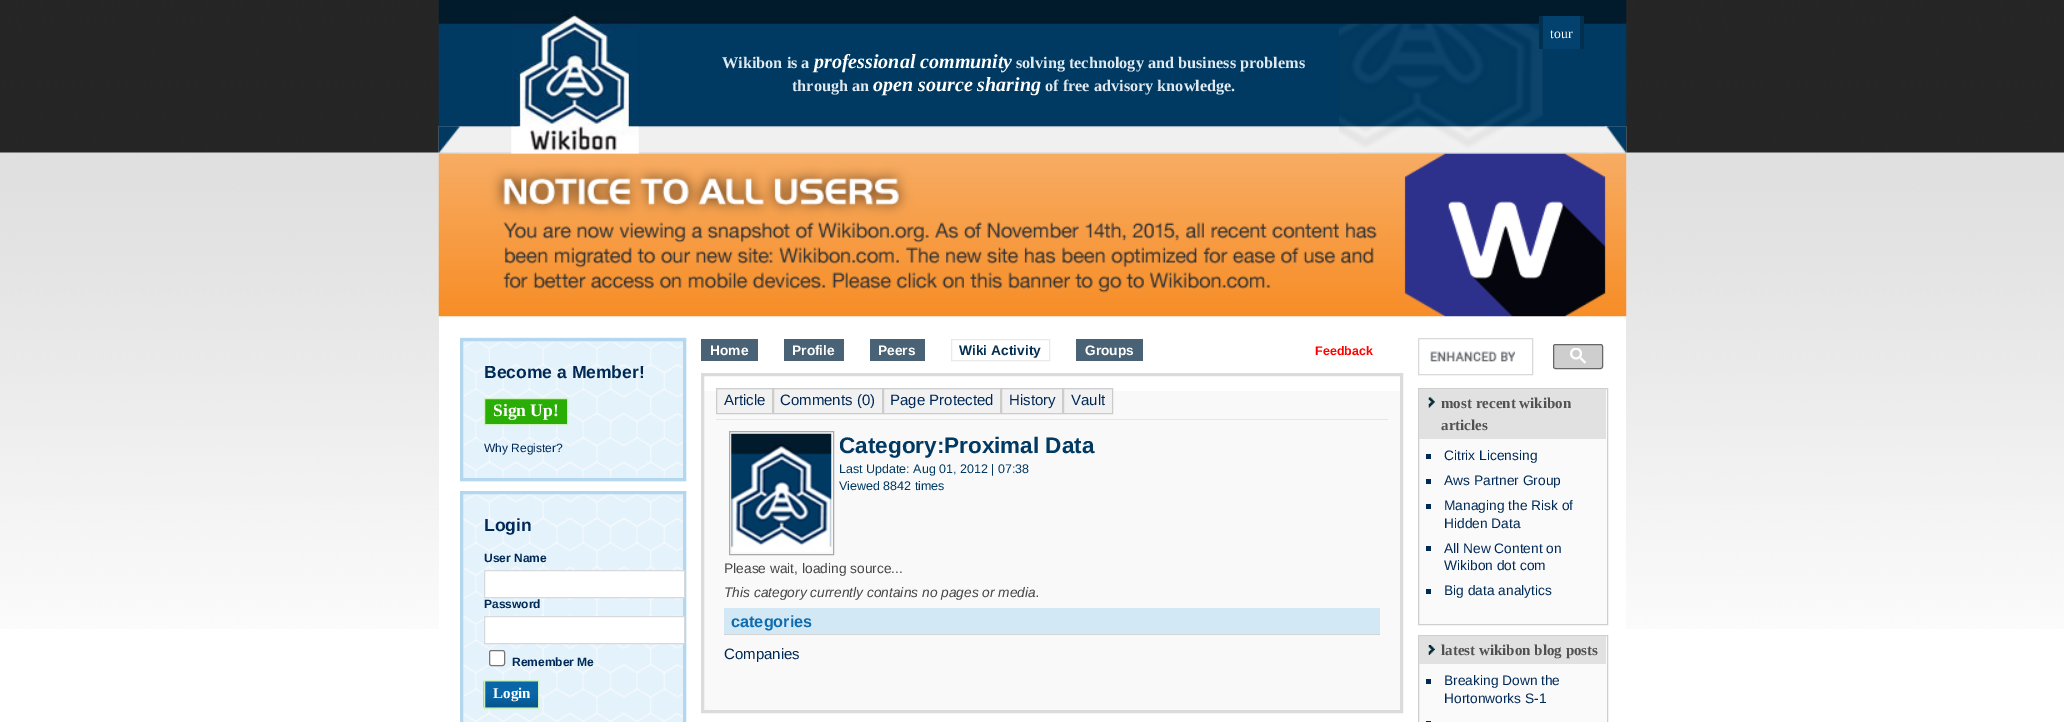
%!PS
<< /PageSize [2064 722] >> setpagedevice
/rgb { 3 { 255 div 3 1 roll } repeat setrgbcolor } def
/font { [ exch dup neg 0 0 3 -1 roll 0 0 ] selectfont } def
/roundrect { 5 dict begin { /r /h /w /y /x } { exch def } forall
  x r add y moveto x w add y 2 copy h add r arct x w add y h add x 1 index r arct
  x y h add x y r arct x y 2 copy exch w add exch r arct closepath end } def
/picture { 5 dict begin { /h /w /y /x /name } { exch def } forall
  gsave x y translate w h scale
  w h 8 [w 0 0 h 0 0] name (r) file false 3 colorimage grestore end } def
0 722 translate 1 -1 scale
4 setmiterlimit
255 255 255 rgb
0 0 2064 722 rectfill
(img/1.rgb) 0 0 2064 629 picture
(img/2.rgb) 438 0 1189 154 picture
(img/3.rgb) 511 10 128 144 picture
(img/4.rgb) 1339 23 250 131 picture
[
  [1543 16 37 33 3 66 110]
  [1580 16 4 33 1 48 81]
  [1539 16 4 33 1 48 81]
] { aload pop rgb rectfill } forall
(img/5.rgb) 438 126 22 28 picture
(img/6.rgb) 1605 126 22 28 picture
255 255 255 rgb
439 316 1187 313 rectfill
(img/7.rgb) 438 153 1189 164 picture
(img/8.rgb) 460 337 227 145 picture
178 215 238 rgb
3 setlinewidth
461.5 339.5 223 140 rectstroke
42 174 6 rgb
484.5 398.5 moveto 567.5 398.5 lineto 567.5 424.5 lineto 484.5 424.5 lineto closepath gsave fill grestore
207 240 192 rgb
1 setlinewidth
stroke
(img/9.rgb) 463 491 224 231 picture
178 215 238 rgb
3 setlinewidth
461.5 492.5 223 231 rectstroke
255 255 255 rgb
484.5 570.5 moveto 684.5 570.5 lineto 684.5 597.5 lineto 484.5 597.5 lineto closepath gsave fill grestore
214 218 221 rgb
1 setlinewidth
stroke
255 255 255 rgb
484.5 616.5 moveto 684.5 616.5 lineto 684.5 643.5 lineto 484.5 643.5 lineto closepath gsave fill grestore
214 218 221 rgb
stroke
255 255 255 rgb
489.5 650.5 15 15 2 roundrect gsave fill grestore
118 118 118 rgb
stroke
(img/10.rgb) 483 681 55 27 picture
207 240 192 rgb
484.5 680.5 54 28 rectstroke
[
  [701 339 57 22 73 98 118]
  [784 339 60 22 73 98 118]
  [870 339 55 22 73 98 118]
] { aload pop rgb rectfill } forall
233 233 233 rgb
951.5 339.5 98 21 rectstroke
73 98 118 rgb
1076 339 67 22 rectfill
249 249 249 rgb
704 391 696 319 rectfill
219 219 219 rgb
3 setlinewidth
702.5 374.5 699 337 rectstroke
231 231 231 rgb
716 419 672 1 rectfill
241 241 241 rgb
716.5 388.5 moveto 772.5 388.5 lineto 772.5 413.5 lineto 716.5 413.5 lineto closepath gsave fill grestore
204 204 204 rgb
1 setlinewidth
stroke
241 241 241 rgb
773.5 388.5 moveto 882.5 388.5 lineto 882.5 413.5 lineto 773.5 413.5 lineto closepath gsave fill grestore
204 204 204 rgb
stroke
241 241 241 rgb
883.5 388.5 moveto 1000.5 388.5 lineto 1000.5 413.5 lineto 883.5 413.5 lineto closepath gsave fill grestore
204 204 204 rgb
stroke
241 241 241 rgb
1001.5 388.5 moveto 1062.5 388.5 lineto 1062.5 413.5 lineto 1001.5 413.5 lineto closepath gsave fill grestore
204 204 204 rgb
stroke
241 241 241 rgb
1063.5 388.5 moveto 1112.5 388.5 lineto 1112.5 413.5 lineto 1063.5 413.5 lineto closepath gsave fill grestore
204 204 204 rgb
stroke
170 170 170 rgb
729.5 431.5 104 123 rectstroke
(img/11.rgb) 731 433 101 119 picture
210 232 245 rgb
724 608 656 26 rectfill
212 212 212 rgb
724 634 656 1 rectfill
217 217 217 rgb
1418.5 338.5 114 36 rectstroke
(img/12.rgb) 1430 351 85 11 picture
206 206 206 rgb
1553.5 344.5 49 24 2 roundrect gsave fill grestore
102 102 102 rgb
stroke
(img/13.rgb) 1570 348 16 16 picture
250 250 250 rgb
1418.5 388.5 moveto 1607.5 388.5 lineto 1607.5 624.5 lineto 1418.5 624.5 lineto closepath gsave fill grestore
207 207 207 rgb
stroke
225 225 225 rgb
1419 389 187 50 rectfill
(img/14.rgb) 1428 397 7 11 picture
[
  [1426 454 5 5 0 41 86]
  [1426 479 5 5 0 41 86]
  [1426 504 5 5 0 41 86]
  [1426 546 5 5 0 41 86]
  [1426 589 5 5 0 41 86]
] { aload pop rgb rectfill } forall
250 250 250 rgb
1418.5 635.5 moveto 1607.5 635.5 lineto 1607.5 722.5 lineto 1418.5 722.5 lineto closepath gsave fill grestore
207 207 207 rgb
stroke
225 225 225 rgb
1419 636 187 28 rectfill
(img/15.rgb) 1428 645 7 10 picture
0 41 86 rgb
1426 679 5 5 rectfill
1426 721 5 1 rectfill
/LiberationSerif-Regular 13.75 font
255 255 255 rgb
1550 38 moveto (tour) show
/LiberationSerif-Bold 16.25 font
223 233 240 rgb
722 68 moveto (Wikibon is a) show
/LiberationSerif-BoldItalic 20 font
255 255 255 rgb
814 68 moveto (professional community) show
/LiberationSerif-Bold 16.25 font
223 233 240 rgb
1016 68 moveto (solving technology and business problems) show
792 91 moveto (through an) show
/LiberationSerif-BoldItalic 20 font
255 255 255 rgb
873 91 moveto (open source sharing) show
/LiberationSerif-Bold 16.25 font
223 233 240 rgb
1045 91 moveto (of free advisory knowledge.) show
/LiberationSans-Bold 17.5 font
0 41 86 rgb
484 378 moveto (Become a Member!) show
/LiberationSerif-Bold 17.5 font
255 255 255 rgb
493 416 moveto (Sign Up!) show
/LiberationSans-Regular 12 font
0 41 86 rgb
484 452 moveto (Why Register?) show
/LiberationSans-Bold 17.5 font
484 531 moveto (Login) show
/LiberationSans-Bold 12 font
[
  [(User Name) 484 562]
  [(Password) 484 608]
  [(Remember Me) 512 666]
] { aload pop moveto show } forall
/LiberationSerif-Bold 15 font
255 255 255 rgb
493 698 moveto (Login) show
/LiberationSans-Bold 13.75 font
[
  [(Home) 710 355]
  [(Profile) 792 355]
  [(Peers) 878 355]
] { aload pop moveto show } forall
4 48 83 rgb
959 355 moveto (Wiki Activity) show
255 255 255 rgb
1085 355 moveto (Groups) show
/LiberationSans-Bold 12.5 font
255 0 0 rgb
1315 355 moveto (Feedback) show
/LiberationSans-Regular 15 font
0 41 86 rgb
[
  [(Article) 724 405]
  [(Comments \(0\)) 780 405]
  [(Page Protected) 890 405]
  [(History) 1009 405]
  [(Vault) 1071 405]
] { aload pop moveto show } forall
/LiberationSans-Bold 22.5 font
0 58 99 rgb
839 453 moveto (Category:Proximal Data) show
/LiberationSans-Regular 12.5 font
839 473 moveto (Last Update: Aug 01, 2012 | 07:38) show
839 490 moveto (Viewed 8842 times) show
/LiberationSans-Regular 13.75 font
69 69 69 rgb
724 573 moveto (Please wait, loading source...) show
/LiberationSans-Italic 13.75 font
724 597 moveto (This category currently contains no pages or media.) show
/LiberationSans-Bold 16.25 font
14 108 175 rgb
731 627 moveto (categories) show
/LiberationSans-Regular 15 font
0 41 86 rgb
724 659 moveto (Companies) show
/LiberationSerif-Bold 15 font
81 81 81 rgb
1441 408 moveto (most recent wikibon) show
1441 430 moveto (articles) show
/LiberationSans-Regular 13.75 font
0 41 86 rgb
[
  [(Citrix Licensing) 1444 460]
  [(Aws Partner Group) 1444 485]
  [(Managing the Risk of) 1444 510]
  [(Hidden Data) 1444 528]
  [(All New Content on) 1444 553]
  [(Wikibon dot com) 1444 570]
  [(Big data analytics) 1444 595]
] { aload pop moveto show } forall
/LiberationSerif-Bold 15 font
81 81 81 rgb
1441 655 moveto (latest wikibon blog posts) show
/LiberationSans-Regular 13.75 font
0 41 86 rgb
1444 685 moveto (Breaking Down the) show
1444 703 moveto (Hortonworks S-1) show
showpage
